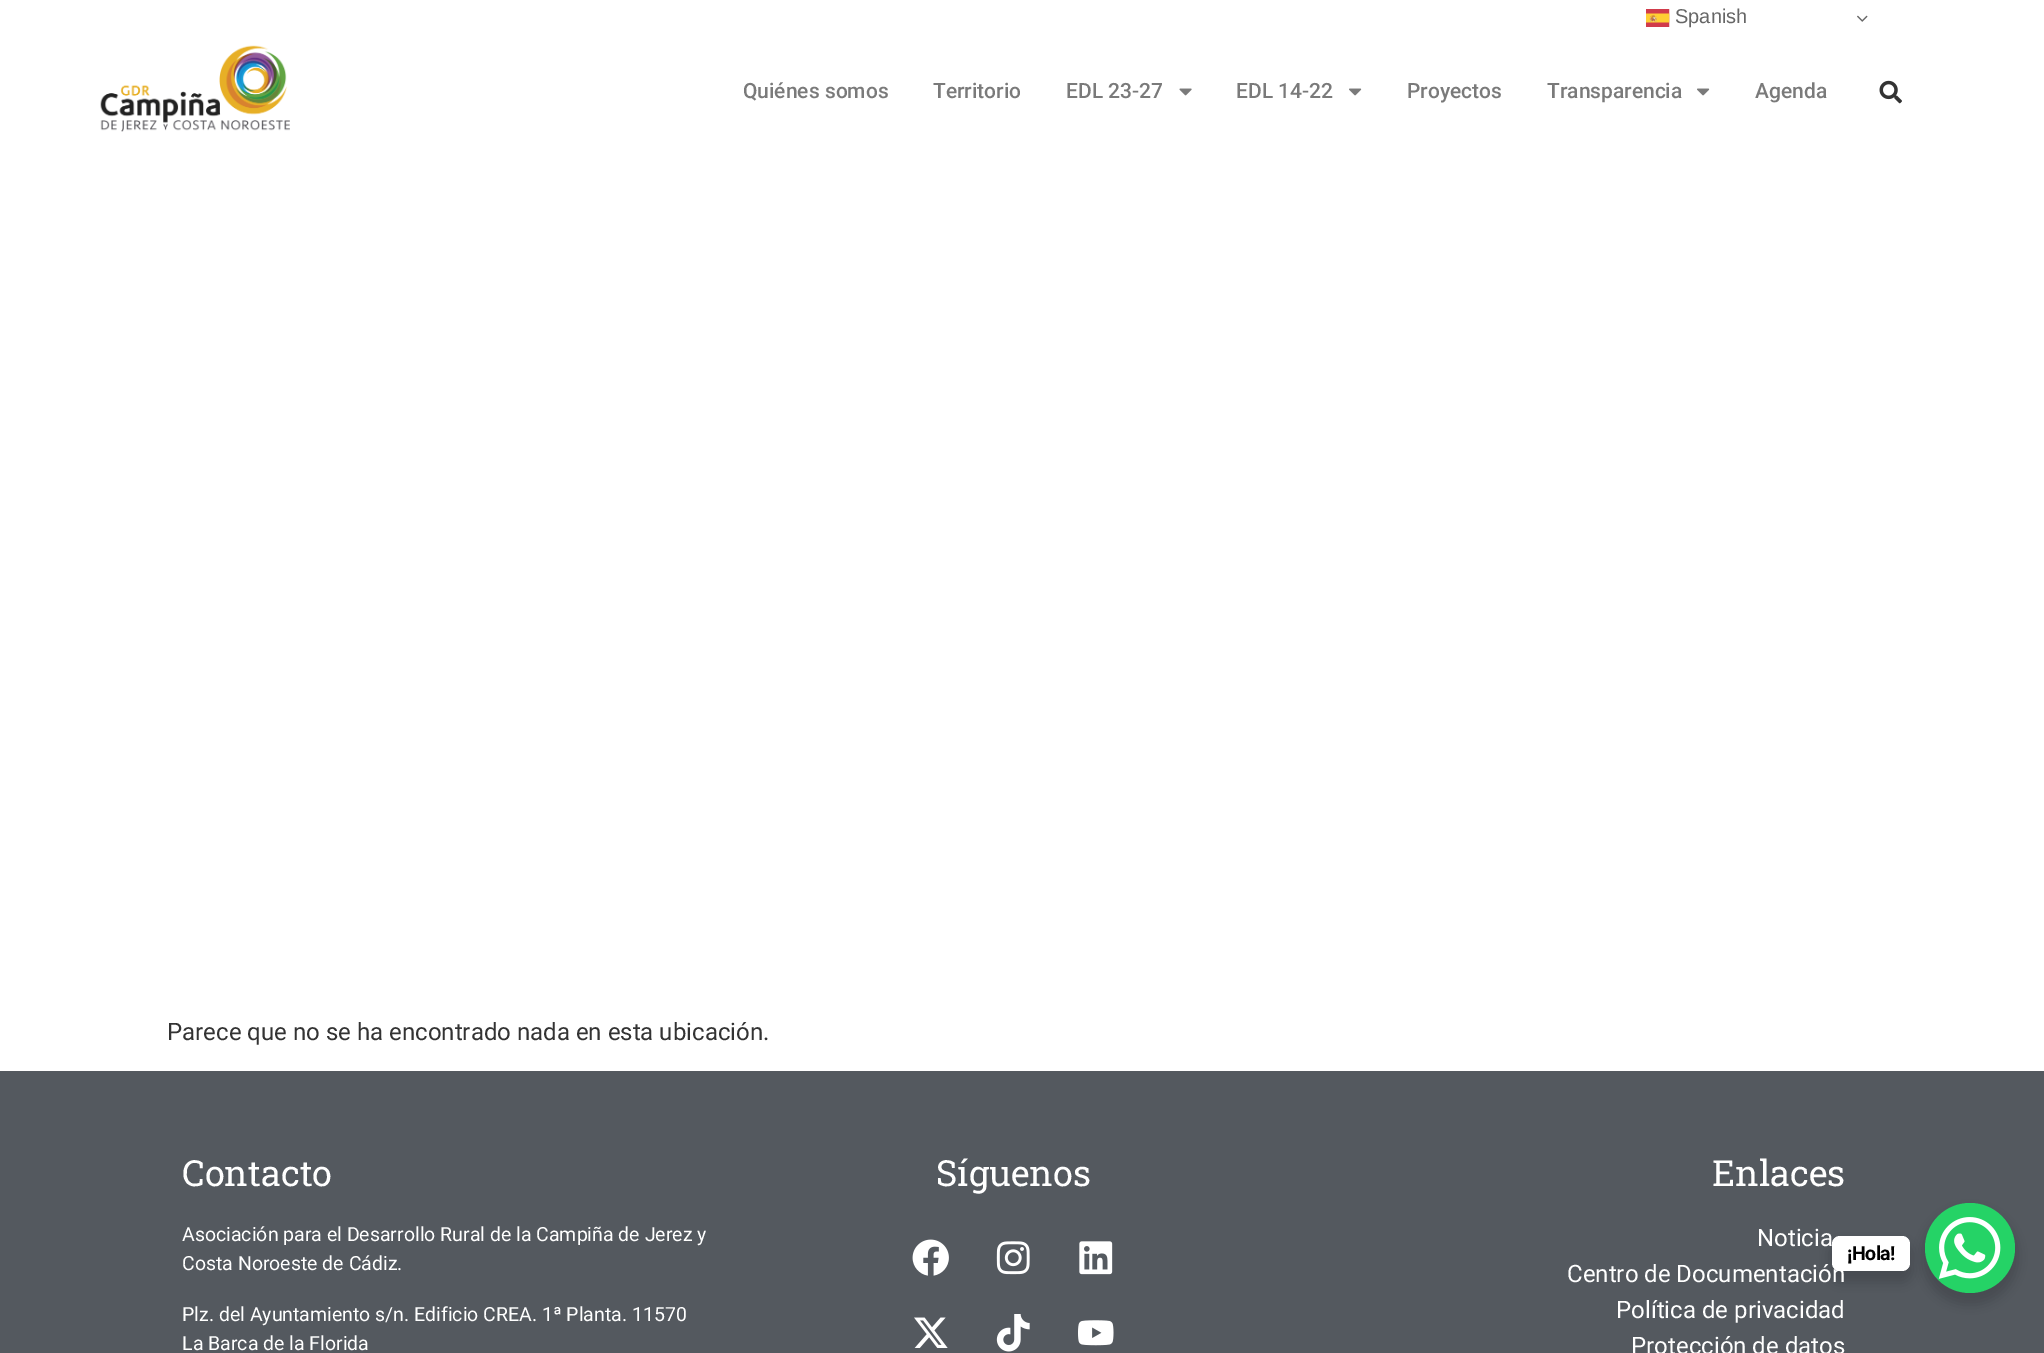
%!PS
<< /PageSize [2044 1353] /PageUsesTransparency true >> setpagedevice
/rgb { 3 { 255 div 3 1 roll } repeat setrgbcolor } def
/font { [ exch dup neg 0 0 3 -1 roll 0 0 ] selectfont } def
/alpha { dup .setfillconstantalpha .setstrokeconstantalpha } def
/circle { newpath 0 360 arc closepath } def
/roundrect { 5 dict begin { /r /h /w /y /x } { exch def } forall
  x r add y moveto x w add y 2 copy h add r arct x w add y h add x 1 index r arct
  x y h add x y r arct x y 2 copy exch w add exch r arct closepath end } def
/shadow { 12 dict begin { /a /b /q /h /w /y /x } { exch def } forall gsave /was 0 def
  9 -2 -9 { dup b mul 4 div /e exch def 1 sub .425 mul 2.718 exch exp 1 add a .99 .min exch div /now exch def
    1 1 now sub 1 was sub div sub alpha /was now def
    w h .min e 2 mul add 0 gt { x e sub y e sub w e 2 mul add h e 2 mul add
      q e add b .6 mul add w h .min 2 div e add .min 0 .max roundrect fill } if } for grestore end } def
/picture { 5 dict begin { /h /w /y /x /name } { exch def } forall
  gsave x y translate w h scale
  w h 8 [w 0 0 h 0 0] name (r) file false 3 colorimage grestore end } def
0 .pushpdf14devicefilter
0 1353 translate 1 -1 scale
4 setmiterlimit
255 255 255 rgb
0 0 2044 1353 rectfill
(img/1.rgb) 1646 9 24 18 picture
(img/2.rgb) 1857 15 11 7 picture
(img/3.rgb) 100 45 190 87 picture
(img/4.rgb) 1179 88 13 8 picture
(img/5.rgb) 1349 88 13 8 picture
(img/5.rgb) 1697 88 13 8 picture
(img/6.rgb) 1879 80 23 24 picture
84 89 95 rgb
0 1071 2044 282 rectfill
(img/7.rgb) 912 1239 37 37 picture
(img/8.rgb) 996 1241 34 34 picture
(img/9.rgb) 1079 1241 34 34 picture
(img/10.rgb) 914 1317 34 31 picture
(img/11.rgb) 996 1314 34 38 picture
(img/12.rgb) 1078 1320 36 26 picture
0 0 0 rgb
1922 1209 96 96 48 6 0.15 shadow
37 211 102 rgb
1970 1248 45 circle fill
0 0 0 rgb
1829 1242 84 41 11 6 0.15 shadow
255 255 255 rgb
1832 1236 78 35 8 roundrect fill
(img/13.rgb) 1938 1217 63 62 picture
/LiberationSans-Regular 20 font
102 102 102 rgb
1675 23 moveto (Spanish) show
/Roboto-Medium 21 font
122 122 122 rgb
[
  [(Quiénes somos) 743 98]
  [(Territorio) 933 98]
  [(EDL 23-27) 1066 98]
  [(EDL 14-22) 1236 98]
  [(Proyectos) 1407 98]
  [(Transparencia) 1547 98]
  [(Agenda) 1755 98]
] { aload pop moveto show } forall
/Roboto-Regular 24 font
51 51 51 rgb
167 1040 moveto (Parece que no se ha encontrado nada en esta ubicación.) show
/RobotoSlab-Regular 36 font
255 255 255 rgb
182 1186 moveto (Contacto) show
/Roboto-Regular 19.5 font
[
  [(Asociación para el Desarrollo Rural de la Campiña de Jerez y) 182 1241]
  [(Costa Noroeste de Cádiz.) 182 1270]
  [(Plz. del Ayuntamiento s/n. Edificio CREA. 1ª Planta. 11570) 182 1321]
  [(La Barca de la Florida) 182 1350]
] { aload pop moveto show } forall
/RobotoSlab-Regular 36 font
936 1186 moveto (Síguenos) show
1712 1186 moveto (Enlaces) show
/Roboto-Regular 24 font
[
  [(Noticia) 1757 1246]
  [(Centro de Documentación) 1567 1282]
  [(Política de privacidad) 1616 1318]
  [(Protección de datos) 1631 1354]
] { aload pop moveto show } forall
/Roboto-Bold 19.5 font
0 0 0 rgb
1847 1260 moveto -0.5 0 (¡Hola!) ashow
.poppdf14devicefilter showpage
